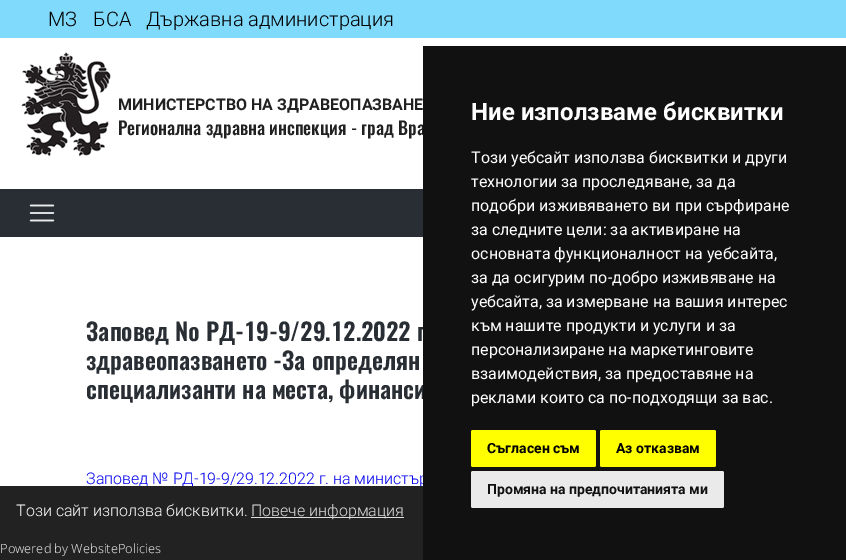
%!PS
<< /PageSize [846 560] >> setpagedevice
/rgb { 3 { 255 div 3 1 roll } repeat setrgbcolor } def
/font { [ exch dup neg 0 0 3 -1 roll 0 0 ] selectfont } def
/roundrect { 5 dict begin { /r /h /w /y /x } { exch def } forall
  x r add y moveto x w add y 2 copy h add r arct x w add y h add x 1 index r arct
  x y h add x y r arct x y 2 copy exch w add exch r arct closepath end } def
/picture { 5 dict begin { /h /w /y /x /name } { exch def } forall
  gsave x y translate w h scale
  w h 8 [w 0 0 h 0 0] name (r) file false 3 colorimage grestore end } def
0 560 translate 1 -1 scale
4 setmiterlimit
255 255 255 rgb
0 0 846 560 rectfill
128 218 252 rgb
0 0 846 38 rectfill
(img/1.rgb) 21 52 90 105 picture
40 46 52 rgb
0 189 423 48 rectfill
(img/2.rgb) 29 204 26 18 picture
/Roboto-Light 20 font
0 0 0 rgb
[
  [(МЗ) 48 26]
  [(БСА) 93 26]
  [(Държавна администрация) 146 26]
] { aload pop moveto show } forall
/Roboto-Bold 16 font
33 33 33 rgb
118 110 moveto (МИНИСТЕРСТВО НА ЗДРАВЕОПАЗВАНЕ) show
/Oswald-Medium 18 font
118 135 moveto (Регионална здравна инспекция - град Вра) show
/Oswald-SemiBold 24 font
40 46 52 rgb
[
  [(Заповед № РД-19-9/29.12.2022 г) 86 341]
  [(здравеопазването -За определян) 86 370]
  [(специализанти на места, финанси) 86 399]
] { aload pop moveto show } forall
/Roboto-Light 16 font
0 0 238 rgb
86 484 moveto (Заповед № РД-19-9/29.12.2022 г. на министър) show
17 17 17 rgb
423 46 423 514 rectfill
/Roboto-Bold 24 font
255 255 255 rgb
471 120 moveto (Ние използваме бисквитки) show
/Roboto-Regular 16 font
[
  [(Този уебсайт използва бисквитки и други) 471 163]
  [(технологии за проследяване, за да) 471 187]
  [(подобри изживяването ви при сърфиране) 471 211]
  [(за следните цели: за активиране на) 471 235]
  [(основната функционалност на уебсайта,) 471 259]
  [(за да осигурим по-добро изживяване на) 471 283]
  [(уебсайта, за измерване на вашия интерес) 471 307]
  [(към нашите продукти и услуги и за) 471 331]
  [(персонализиране на маркетинговите) 471 355]
  [(взаимодействия, за предоставяне на) 471 379]
  [(реклами които са по-подходящи за вас.) 471 403]
] { aload pop moveto show } forall
255 255 0 rgb
471 430 125 37 2 roundrect fill
/Roboto-Bold 14 font
0 0 0 rgb
487 453 moveto (Съгласен съм) show
255 255 0 rgb
600 430 116 37 2 roundrect fill
0 0 0 rgb
616 453 moveto (Аз отказвам) show
234 234 234 rgb
471 471 253 37 2 roundrect fill
17 17 17 rgb
487 494 moveto (Промяна на предпочитанията ми) show
34 34 34 rgb
0 486 423 74 rectfill
/Roboto-Light 16 font
255 255 255 rgb
16 516 moveto (Този сайт използва бисквитки.) show
222 222 222 rgb
251 517 153 1 rectfill
251 516 moveto (Повече информация) show
/NotoSans-Light 12.75 font
0 553 moveto (Powered by WebsitePolicies) show
showpage
